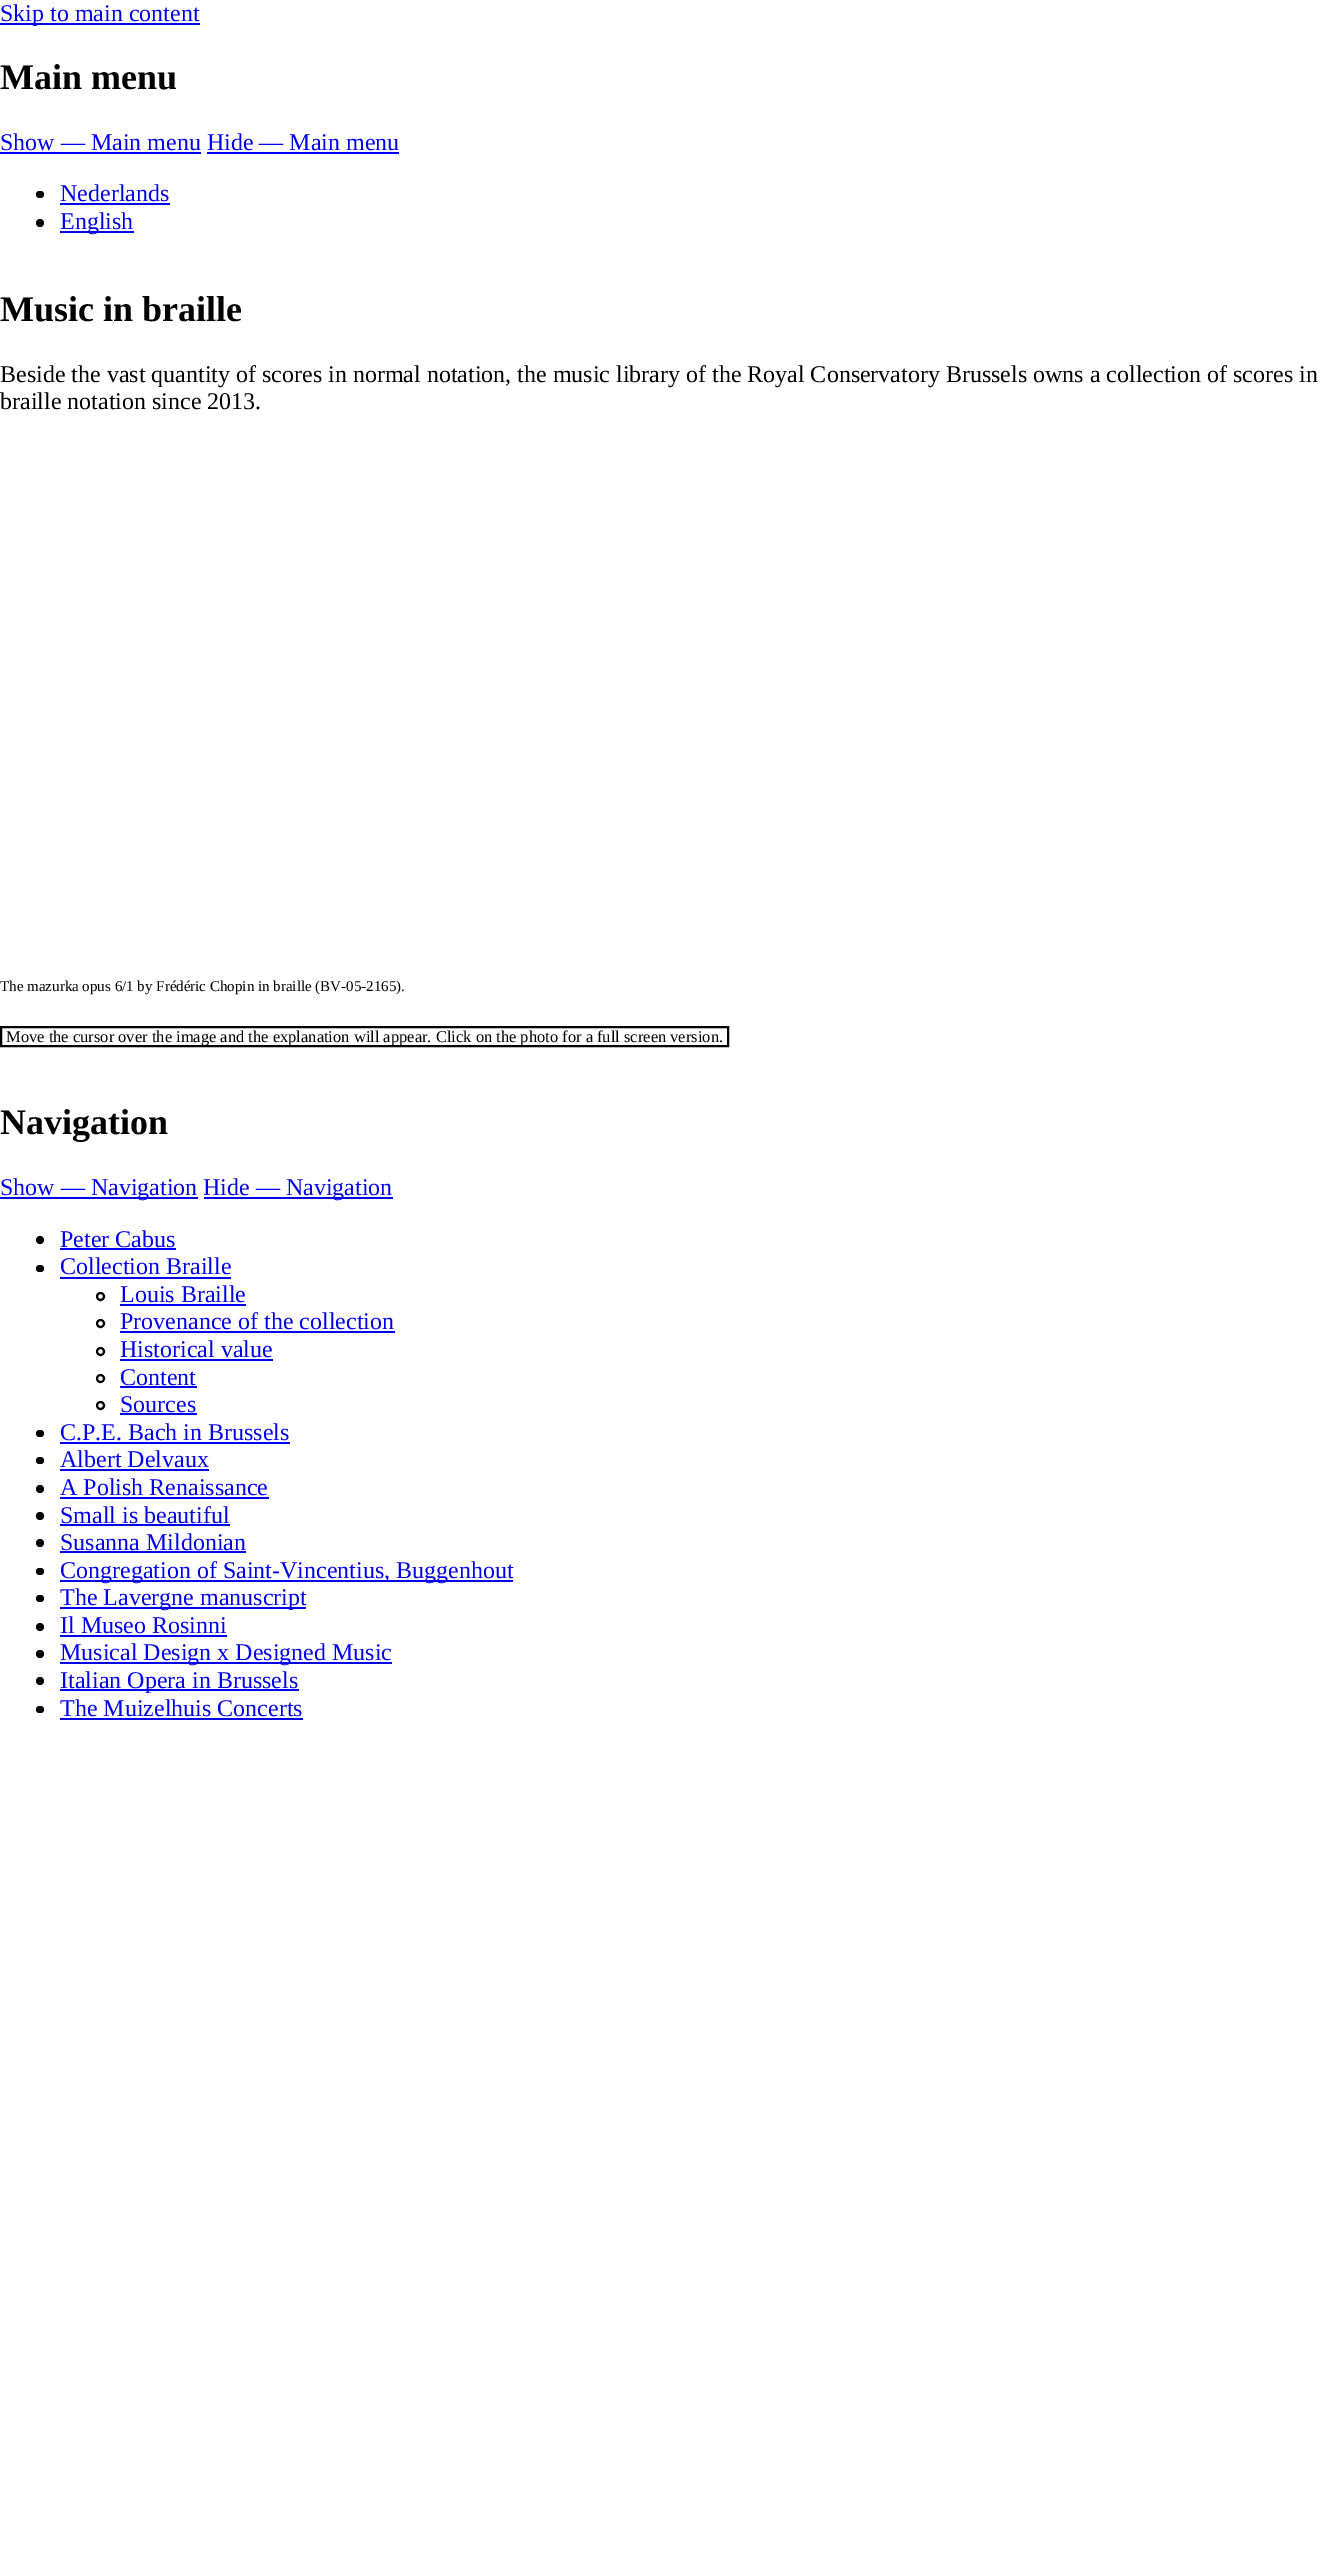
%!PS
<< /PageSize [1320 2554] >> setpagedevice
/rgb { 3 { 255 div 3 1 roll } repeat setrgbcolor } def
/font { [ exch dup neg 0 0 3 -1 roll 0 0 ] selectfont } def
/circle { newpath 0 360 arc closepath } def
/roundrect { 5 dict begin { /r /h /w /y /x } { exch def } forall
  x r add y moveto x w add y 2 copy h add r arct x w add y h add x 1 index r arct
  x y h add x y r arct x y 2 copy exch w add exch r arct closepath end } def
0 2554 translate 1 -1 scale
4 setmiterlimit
255 255 255 rgb
0 0 1320 2554 rectfill
[
  [0 23 200 2 0 0 238]
  [0 152 201 2 0 0 238]
  [207 152 192 2 0 0 238]
] { aload pop rgb rectfill } forall
0 0 0 rgb
36 191 8 7 3.5 roundrect fill
0 0 238 rgb
60 203 110 2 rectfill
0 0 0 rgb
40 223 4 circle fill
0 0 238 rgb
60 231 74 2 rectfill
0 0 0 rgb
2 setlinewidth
1 1027 727 19 rectstroke
0 0 238 rgb
0 1197 198 2 rectfill
204 1197 189 2 rectfill
0 0 0 rgb
40 1240 4 circle fill
0 0 238 rgb
60 1248 116 2 rectfill
0 0 0 rgb
36 1265 8 7 3.5 roundrect fill
0 0 238 rgb
60 1277 171 2 rectfill
0 0 0 rgb
100.5 1296.5 3.5 circle stroke
0 0 238 rgb
120 1304 126 2 rectfill
0 0 0 rgb
100.5 1323.5 3.5 circle stroke
0 0 238 rgb
120 1331 275 2 rectfill
0 0 0 rgb
100.5 1351.5 3.5 circle stroke
0 0 238 rgb
120 1359 153 2 rectfill
0 0 0 rgb
100.5 1378.5 3.5 circle stroke
0 0 238 rgb
120 1386 77 2 rectfill
0 0 0 rgb
100.5 1405.5 3.5 circle stroke
0 0 238 rgb
120 1413 77 2 rectfill
0 0 0 rgb
36 1430 8 7 3.5 roundrect fill
0 0 238 rgb
60 1442 230 2 rectfill
0 0 0 rgb
36 1457 8 7 3.5 roundrect fill
0 0 238 rgb
60 1469 149 2 rectfill
0 0 0 rgb
40 1489 4 circle fill
0 0 238 rgb
60 1497 209 2 rectfill
0 0 0 rgb
40 1516 4 circle fill
0 0 238 rgb
60 1524 170 2 rectfill
0 0 0 rgb
40 1543 4 circle fill
0 0 238 rgb
60 1551 186 2 rectfill
0 0 0 rgb
36 1568 8 7 3.5 roundrect fill
0 0 238 rgb
60 1580 453 2 rectfill
0 0 0 rgb
36 1595 8 7 3.5 roundrect fill
0 0 238 rgb
60 1607 246 2 rectfill
0 0 0 rgb
40 1627 4 circle fill
0 0 238 rgb
60 1635 167 2 rectfill
0 0 0 rgb
40 1654 4 circle fill
0 0 238 rgb
60 1662 332 2 rectfill
0 0 0 rgb
40 1681 4 circle fill
0 0 238 rgb
60 1689 239 2 rectfill
0 0 0 rgb
36 1706 8 7 3.5 roundrect fill
0 0 238 rgb
60 1718 243 2 rectfill
/LiberationSerif-Regular 24 font
0 21 moveto (Skip to main content) show
/LiberationSerif-Bold 36 font
0 0 0 rgb
0 89 moveto (Main menu) show
/LiberationSerif-Regular 24 font
0 0 238 rgb
[
  [(Show — Main menu Hide — Main menu) 0 150]
  [(Nederlands) 60 201]
  [(English) 60 229]
] { aload pop moveto show } forall
/LiberationSerif-Bold 36 font
0 0 0 rgb
0 321 moveto (Music in braille) show
/LiberationSerif-Regular 24 font
0 382 moveto (Beside the vast quantity of scores in normal notation, the music library of the Royal Conservatory Brussels owns a collection of scores in) show
0 409 moveto (braille notation since 2013.) show
/LiberationSerif-Regular 15 font
0 991 moveto (The mazurka opus 6/1 by Frédéric Chopin in braille \(BV-05-2165\).) show
/LiberationSerif-Regular 16.5 font
6 1042 moveto (Move the cursor over the image and the explanation will appear. Click on the photo for a full screen version.) show
/LiberationSerif-Bold 36 font
0 1134 moveto (Navigation) show
/LiberationSerif-Regular 24 font
0 0 238 rgb
[
  [(Show — Navigation) 0 1195]
  [(Hide — Navigation) 203 1195]
  [(Peter Cabus) 60 1247]
  [(Collection Braille) 60 1274]
  [(Louis Braille) 120 1302]
  [(Provenance of the collection) 120 1329]
  [(Historical value) 120 1357]
  [(Content) 120 1385]
  [(Sources) 120 1412]
  [(C.P.E. Bach in Brussels) 60 1440]
  [(Albert Delvaux) 60 1467]
  [(A Polish Renaissance) 60 1495]
  [(Small is beautiful) 60 1523]
  [(Susanna Mildonian) 60 1550]
  [(Congregation of Saint-Vincentius, Buggenhout) 60 1578]
  [(The Lavergne manuscript) 60 1605]
  [(Il Museo Rosinni) 60 1633]
  [(Musical Design x Designed Music) 60 1660]
  [(Italian Opera in Brussels) 60 1688]
  [(The Muizelhuis Concerts) 60 1716]
] { aload pop moveto show } forall
showpage
